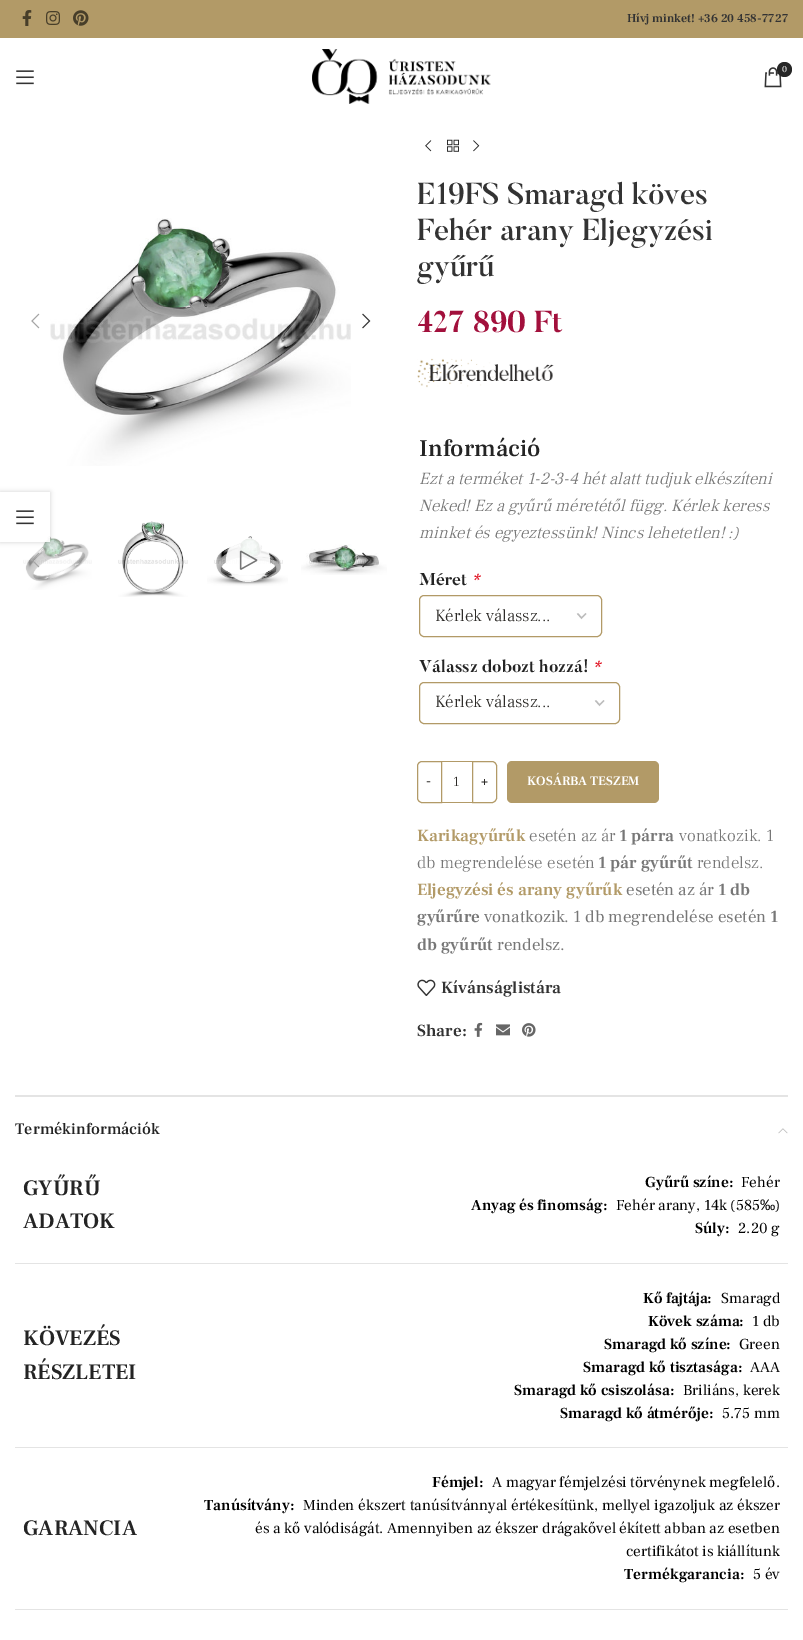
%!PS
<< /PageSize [803 1640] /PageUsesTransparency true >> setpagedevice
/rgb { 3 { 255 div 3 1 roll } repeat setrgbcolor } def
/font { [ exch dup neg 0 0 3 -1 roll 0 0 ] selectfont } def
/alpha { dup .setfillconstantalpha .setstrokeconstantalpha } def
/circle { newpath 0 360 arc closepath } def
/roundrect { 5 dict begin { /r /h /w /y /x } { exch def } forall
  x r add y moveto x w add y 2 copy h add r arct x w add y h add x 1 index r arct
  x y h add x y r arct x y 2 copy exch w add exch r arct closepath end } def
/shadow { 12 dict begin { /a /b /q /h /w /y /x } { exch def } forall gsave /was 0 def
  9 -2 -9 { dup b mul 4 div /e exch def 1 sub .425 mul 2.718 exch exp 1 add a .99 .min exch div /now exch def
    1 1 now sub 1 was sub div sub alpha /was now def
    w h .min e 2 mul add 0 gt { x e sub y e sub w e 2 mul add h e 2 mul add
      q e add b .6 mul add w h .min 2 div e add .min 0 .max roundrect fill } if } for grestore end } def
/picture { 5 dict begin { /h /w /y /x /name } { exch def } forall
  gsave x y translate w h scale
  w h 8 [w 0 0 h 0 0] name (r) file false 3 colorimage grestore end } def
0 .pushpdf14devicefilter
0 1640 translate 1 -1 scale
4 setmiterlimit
255 255 255 rgb
0 0 803 1640 rectfill
178 154 103 rgb
0 0 803 38 rectfill
(img/1.rgb) 22 10 10 16 picture
(img/2.rgb) 46 11 14 14 picture
(img/3.rgb) 73 10 16 16 picture
(img/4.rgb) 312 49 179 55 picture
(img/5.rgb) 764 67 18 21 picture
38 38 38 rgb
784.5 69.5 7.5 circle fill
(img/6.rgb) 16 70 18 15 picture
(img/7.rgb) 50 218 301 248 picture
(img/8.rgb) 31 313 9 16 picture
(img/9.rgb) 362 313 9 16 picture
(img/10.rgb) 23 536 69 54 picture
(img/11.rgb) 118 521 70 76 picture
(img/12.rgb) 207 536 81 50 picture
0.9 alpha
255 255 255 rgb
248 560 22 circle fill
1 alpha
(img/13.rgb) 239 550 19 20 picture
(img/14.rgb) 301 544 86 31 picture
(img/15.rgb) 32 552 8 16 picture
(img/16.rgb) 362 552 9 16 picture
(img/17.rgb) 425 140 7 12 picture
(img/18.rgb) 447 139 12 13 picture
(img/19.rgb) 473 140 7 12 picture
(img/20.rgb) 417 358 137 30 picture
187 187 187 rgb
1.4 setlinewidth
577.5 613.5 moveto 581.5 618 lineto 586 613.5 lineto stroke
178 154 103 rgb
1 setlinewidth
419.5 595.5 182 41 4.5 roundrect stroke
187 187 187 rgb
1.4 setlinewidth
595.5 700.5 moveto 599.5 705 lineto 604 700.5 lineto stroke
178 154 103 rgb
1 setlinewidth
419.5 682.5 200 41 4.5 roundrect stroke
422 761.5 moveto 441.5 761.5 lineto 441.5 802.5 lineto 422 802.5 lineto 419.5 802.5 417.5 800.5 417.5 798 curveto 417.5 766 lineto 417.5 763.5 419.5 761.5 422 761.5 curveto closepath stroke
442 761 30 1 rectfill
442 802 30 1 rectfill
472.5 761.5 moveto 492 761.5 lineto 494.5 761.5 496.5 763.5 496.5 766 curveto 496.5 798 lineto 496.5 800.5 494.5 802.5 492 802.5 curveto 472.5 802.5 lineto closepath stroke
507 761 152 42 5 roundrect fill
(img/21.rgb) 417 979 19 17 picture
(img/22.rgb) 474 1022 9 15 picture
(img/23.rgb) 496 1024 14 12 picture
(img/24.rgb) 522 1023 14 14 picture
228 228 228 rgb
15 1095 773 2 rectfill
(img/25.rgb) 778 1128 10 6 picture
[
  [15 1263 773 1 228 228 228]
  [15 1447 773 1 228 228 228]
  [15 1609 773 1 228 228 228]
] { aload pop rgb rectfill } forall
gsave
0 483 moveto 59 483 lineto 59 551 lineto 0 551 lineto closepath 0 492 moveto 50 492 lineto 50 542 lineto 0 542 lineto closepath eoclip newpath
0 0 0 rgb
0 492 50 50 0 2.5 0.17 shadow
grestore
0.9 alpha
255 255 255 rgb
45 536 5 6 rectfill
1 alpha
(img/6.rgb) 16 510 18 15 picture
/FrankRuhlLibre-SemiBold 12 font
51 51 51 rgb
627 22 moveto (Hívj minket! +36 20 458-7727) show
/FrankRuhlLibre-Regular 9 font
255 255 255 rgb
782 72 moveto (0) show
/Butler-Medium 30 font
51 51 51 rgb
[
  [(E19FS Smaragd köves) 417 204]
  [(Fehér arany Eljegyzési) 417 240]
  [(gyűrű) 417 276]
] { aload pop moveto show } forall
/Butler-Bold 30 font
162 16 60 rgb
417 332 moveto (427 890 Ft) show
/FrankRuhlLibre-Medium 24 font
36 36 36 rgb
419 456 moveto (Információ) show
/FrankRuhlLibre-LightItalic 17 font
119 119 119 rgb
[
  [(Ezt a terméket 1-2-3-4 hét alatt tudjuk elkészíteni) 419 484]
  [(Neked! Ez a gyűrű méretétől függ. Kérlek keress) 419 511]
  [(minket és egyeztessünk! Nincs lehetetlen! :\)) 419 538]
] { aload pop moveto show } forall
/Butler-Bold 17 font
36 36 36 rgb
419 585 moveto (Méret) show
/Butler-BoldItalic 16 font
224 16 32 rgb
471 585 moveto (*) show
/FrankRuhlLibre-Light 17 font
44 42 39 rgb
435 621 moveto (Kérlek válassz...) show
/Butler-Bold 17 font
36 36 36 rgb
419 672 moveto (Válassz dobozt hozzá!) show
/Butler-BoldItalic 16 font
224 16 32 rgb
592 672 moveto (*) show
/FrankRuhlLibre-Light 17 font
44 42 39 rgb
435 707 moveto (Kérlek válassz...) show
/FrankRuhlLibre-SemiBold 13 font
426 785 moveto (-) show
/FrankRuhlLibre-Light 14 font
453 786 moveto (1) show
/FrankRuhlLibre-SemiBold 13 font
481 785 moveto (+) show
255 255 255 rgb
527 785 moveto (KOSÁRBA TESZEM) show
/FrankRuhlLibre-SemiBold 17 font
178 154 103 rgb
417 841 moveto (Karikagyűrűk) show
/FrankRuhlLibre-Light 17 font
119 119 119 rgb
529 841 moveto (esetén az ár) show
/FrankRuhlLibre-SemiBold 17 font
619 841 moveto (1 párra) show
/FrankRuhlLibre-Light 17 font
679 841 moveto (vonatkozik. 1) show
417 868 moveto (db megrendelése esetén) show
/FrankRuhlLibre-SemiBold 17 font
598 868 moveto (1 pár gyűrűt) show
/FrankRuhlLibre-Light 17 font
697 868 moveto (rendelsz.) show
/FrankRuhlLibre-SemiBold 17 font
178 154 103 rgb
417 895 moveto (Eljegyzési és arany gyűrűk) show
/FrankRuhlLibre-Regular 17 font
119 119 119 rgb
626 895 moveto (esetén az ár) show
/FrankRuhlLibre-SemiBold 17 font
718 895 moveto (1 db) show
417 922 moveto (gyűrűre) show
/FrankRuhlLibre-Regular 17 font
484 922 moveto (vonatkozik. 1 db megrendelése esetén) show
/FrankRuhlLibre-SemiBold 17 font
770 922 moveto (1) show
417 950 moveto (db gyűrűt) show
/FrankRuhlLibre-Regular 17 font
497 950 moveto (rendelsz.) show
/FrankRuhlLibre-SemiBold 17 font
51 51 51 rgb
441 993 moveto (Kívánságlistára) show
417 1036 moveto (Share:) show
/FrankRuhlLibre-Medium 16 font
36 36 36 rgb
15 1134 moveto (Termékinformációk) show
/FrankRuhlLibre-SemiBold 22 font
23 1195 moveto (GYŰRŰ) show
23 1228 moveto (ADATOK) show
/FrankRuhlLibre-SemiBold 15.3 font
0 0 0 rgb
645 1187 moveto (Gyűrű színe:) show
/FrankRuhlLibre-Regular 15.3 font
741 1187 moveto (Fehér) show
/FrankRuhlLibre-SemiBold 15.3 font
471 1210 moveto (Anyag és finomság:) show
/FrankRuhlLibre-Regular 15.3 font
616 1210 moveto (Fehér arany, 14k \(585) show
/LiberationSans-Regular 15.3 font
760 1210 moveto (‰) show
/FrankRuhlLibre-Regular 15.3 font
775 1210 moveto (\)) show
/FrankRuhlLibre-SemiBold 15.3 font
695 1233 moveto (Súly:) show
/FrankRuhlLibre-Regular 15.3 font
738 1233 moveto (2.20 g) show
/FrankRuhlLibre-SemiBold 22 font
36 36 36 rgb
23 1345 moveto (KÖVEZÉS) show
23 1379 moveto (RÉSZLETEI) show
/FrankRuhlLibre-SemiBold 15.3 font
0 0 0 rgb
643 1303 moveto (Kő fajtája:) show
/FrankRuhlLibre-Regular 15.3 font
721 1303 moveto (Smaragd) show
/FrankRuhlLibre-SemiBold 15.3 font
648 1326 moveto (Kövek száma:) show
/FrankRuhlLibre-Regular 15.3 font
752 1326 moveto (1 db) show
/FrankRuhlLibre-SemiBold 15.3 font
604 1349 moveto (Smaragd kő színe:) show
/FrankRuhlLibre-Regular 15.3 font
739 1349 moveto (Green) show
/FrankRuhlLibre-SemiBold 15.3 font
583 1372 moveto (Smaragd kő tisztasága:) show
/FrankRuhlLibre-Regular 15.3 font
750 1372 moveto (AAA) show
/FrankRuhlLibre-SemiBold 15.3 font
514 1395 moveto (Smaragd kő csiszolása:) show
/FrankRuhlLibre-Regular 15.3 font
683 1395 moveto (Briliáns, kerek) show
/FrankRuhlLibre-SemiBold 15.3 font
560 1418 moveto (Smaragd kő átmérője:) show
/FrankRuhlLibre-Regular 15.3 font
722 1418 moveto (5.75 mm) show
/FrankRuhlLibre-SemiBold 22 font
36 36 36 rgb
23 1535 moveto (GARANCIA) show
/FrankRuhlLibre-SemiBold 15.3 font
0 0 0 rgb
432 1487 moveto (Fémjel:) show
/FrankRuhlLibre-Regular 15.3 font
492 1487 moveto (A magyar fémjelzési törvénynek megfelelő.) show
/FrankRuhlLibre-SemiBold 15.3 font
204 1510 moveto (Tanúsítvány:) show
/FrankRuhlLibre-Regular 15.3 font
[
  [(Minden ékszert tanúsítvánnyal értékesítünk, mellyel igazoljuk az ékszer) 303 1510]
  [(és a kő valódiságát. Amennyiben az ékszer drágakővel ékített abban az esetben) 255 1533]
  [(certifikátot is kiállítunk) 626 1556]
] { aload pop moveto show } forall
/FrankRuhlLibre-SemiBold 15.3 font
624 1579 moveto (Termékgarancia:) show
/FrankRuhlLibre-Regular 15.3 font
753 1579 moveto (5 év) show
.poppdf14devicefilter showpage
